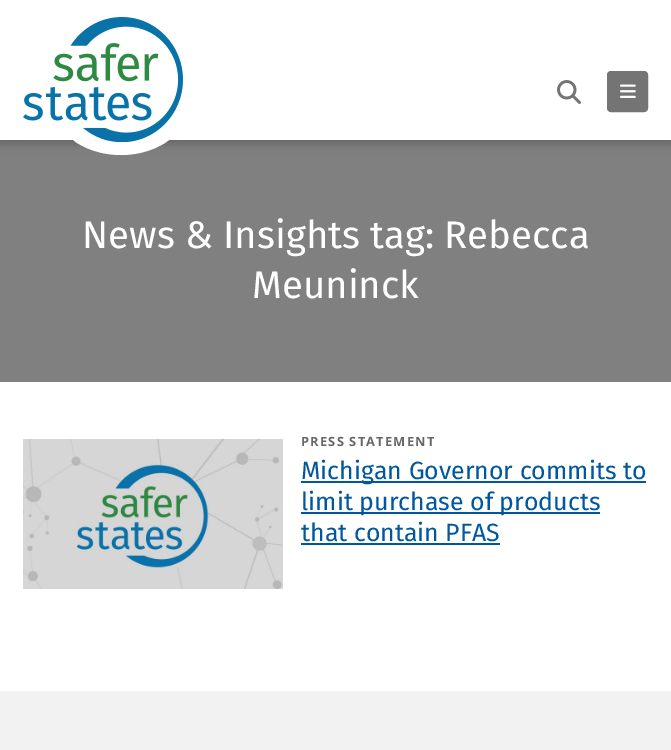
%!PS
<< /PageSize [671 750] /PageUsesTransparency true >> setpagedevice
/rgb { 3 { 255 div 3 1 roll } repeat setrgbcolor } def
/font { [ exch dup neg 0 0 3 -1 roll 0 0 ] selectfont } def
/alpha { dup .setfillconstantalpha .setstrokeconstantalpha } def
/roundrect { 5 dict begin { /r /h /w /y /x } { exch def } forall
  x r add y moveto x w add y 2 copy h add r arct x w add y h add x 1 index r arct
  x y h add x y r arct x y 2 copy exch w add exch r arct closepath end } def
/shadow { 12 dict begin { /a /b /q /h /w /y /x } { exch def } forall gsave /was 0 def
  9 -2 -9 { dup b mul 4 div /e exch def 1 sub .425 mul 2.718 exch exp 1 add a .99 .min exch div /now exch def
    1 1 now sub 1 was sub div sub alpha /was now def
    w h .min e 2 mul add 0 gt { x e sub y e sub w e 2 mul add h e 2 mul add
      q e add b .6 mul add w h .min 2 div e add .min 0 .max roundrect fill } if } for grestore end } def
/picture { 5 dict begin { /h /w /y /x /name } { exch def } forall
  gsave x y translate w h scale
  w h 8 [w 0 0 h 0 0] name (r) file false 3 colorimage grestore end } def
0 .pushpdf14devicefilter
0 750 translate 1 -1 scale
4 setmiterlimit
255 255 255 rgb
0 0 671 750 rectfill
128 128 128 rgb
0 140 671 242 rectfill
0 0 0 rgb
-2 0 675 144 0 4.5 0.2 shadow
255 255 255 rgb
0 0 671 140 rectfill
121 43 moveto 160 43 192 68 192 99 curveto 192 130 160 155 121 155 curveto 82 155 50 130 50 99 curveto 50 68 82 43 121 43 curveto closepath fill
(img/1.rgb) 23 17 160 125 picture
(img/2.rgb) 557 80 24 24 picture
116 116 116 rgb
607.5 71.5 40 40 3.5 roundrect gsave fill grestore
stroke
(img/3.rgb) 620 84 16 14 picture
(img/4.rgb) 23 439 260 150 picture
[
  [301 481 345 2 0 87 158]
  [301 512 299 2 0 87 158]
  [301 543 199 2 0 87 158]
  [0 691 671 59 242 242 242]
] { aload pop rgb rectfill } forall
/FiraSans-Regular 38.4 font
255 255 255 rgb
82 248 moveto (News & Insights tag: Rebecca) show
252 298 moveto (Meuninck) show
/OpenSans-Bold 12.75 font
102 102 102 rgb
301 446 moveto 1.25 0 (PRESS STATEMENT) ashow
/FiraSans-Regular 24.9 font
0 87 158 rgb
[
  [(Michigan Governor commits to) 301 479]
  [(limit purchase of products) 301 510]
  [(that contain PFAS) 301 541]
] { aload pop moveto show } forall
.poppdf14devicefilter showpage
